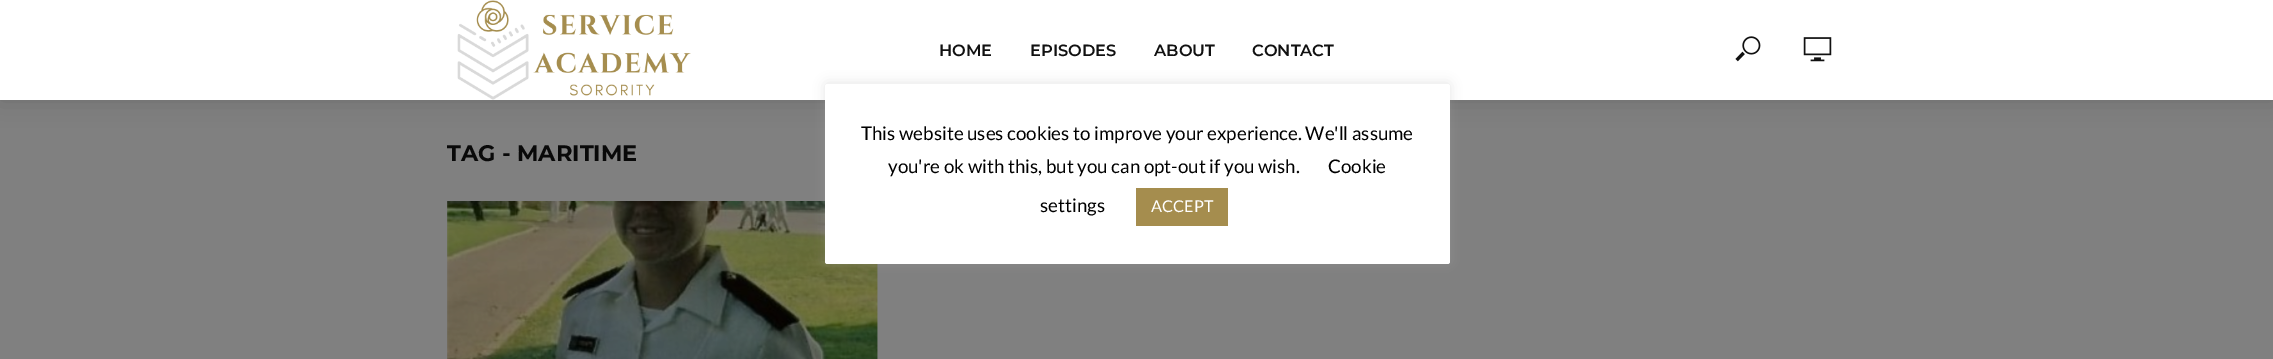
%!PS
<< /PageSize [2273 359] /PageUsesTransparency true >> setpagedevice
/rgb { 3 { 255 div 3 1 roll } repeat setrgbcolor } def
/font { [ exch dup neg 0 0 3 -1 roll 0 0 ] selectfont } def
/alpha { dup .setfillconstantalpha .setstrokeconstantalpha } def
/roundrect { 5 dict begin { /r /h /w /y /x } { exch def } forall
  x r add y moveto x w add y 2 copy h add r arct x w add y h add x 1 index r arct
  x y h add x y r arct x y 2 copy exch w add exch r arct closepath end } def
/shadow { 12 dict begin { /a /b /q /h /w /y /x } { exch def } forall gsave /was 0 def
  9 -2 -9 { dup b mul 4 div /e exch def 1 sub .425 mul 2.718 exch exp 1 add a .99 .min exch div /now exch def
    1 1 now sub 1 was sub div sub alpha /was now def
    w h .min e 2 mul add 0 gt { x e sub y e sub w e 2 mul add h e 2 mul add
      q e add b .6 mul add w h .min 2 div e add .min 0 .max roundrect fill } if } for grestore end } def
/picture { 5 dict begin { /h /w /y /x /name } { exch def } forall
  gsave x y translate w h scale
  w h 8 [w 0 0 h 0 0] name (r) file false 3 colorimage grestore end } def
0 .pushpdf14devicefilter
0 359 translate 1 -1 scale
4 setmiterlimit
128 128 128 rgb
0 0 2273 359 rectfill
0 0 0 rgb
0 0 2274 100 0 12.5 0.15 shadow
255 255 255 rgb
0 0 2273 100 rectfill
(img/1.rgb) 457 0 234 100 picture
(img/2.rgb) 1735 36 26 26 picture
(img/3.rgb) 1803 37 29 25 picture
(img/4.rgb) 447 201 431 158 picture
172 171 171 rgb
825 83 625 180 2.5 6 0.3 shadow
255 255 255 rgb
825 84 625 180 2.5 roundrect fill
165 141 78 rgb
1136 188 92 38 rectfill
/Montserrat-SemiBold 16.25 font
17 17 17 rgb
[
  [(HOME) 939 56]
  [(EPISODES) 1030 56]
  [(ABOUT) 1154 56]
  [(CONTACT) 1252 56]
] { aload pop moveto show } forall
/Montserrat-Bold 22.5 font
9 9 9 rgb
447 161 moveto (TAG - MARITIME) show
/Lato-Regular 18.75 font
0 0 0 rgb
[
  [(This website uses cookies to improve your experience. We'll assume) 861 140]
  [(you're ok with this, but you can opt-out if you wish.) 888 173]
  [(Cookie) 1328 173]
  [(settings) 1040 212]
] { aload pop moveto show } forall
/Lato-Regular 16.25 font
255 255 255 rgb
1151 212 moveto (ACCEPT) show
.poppdf14devicefilter showpage
